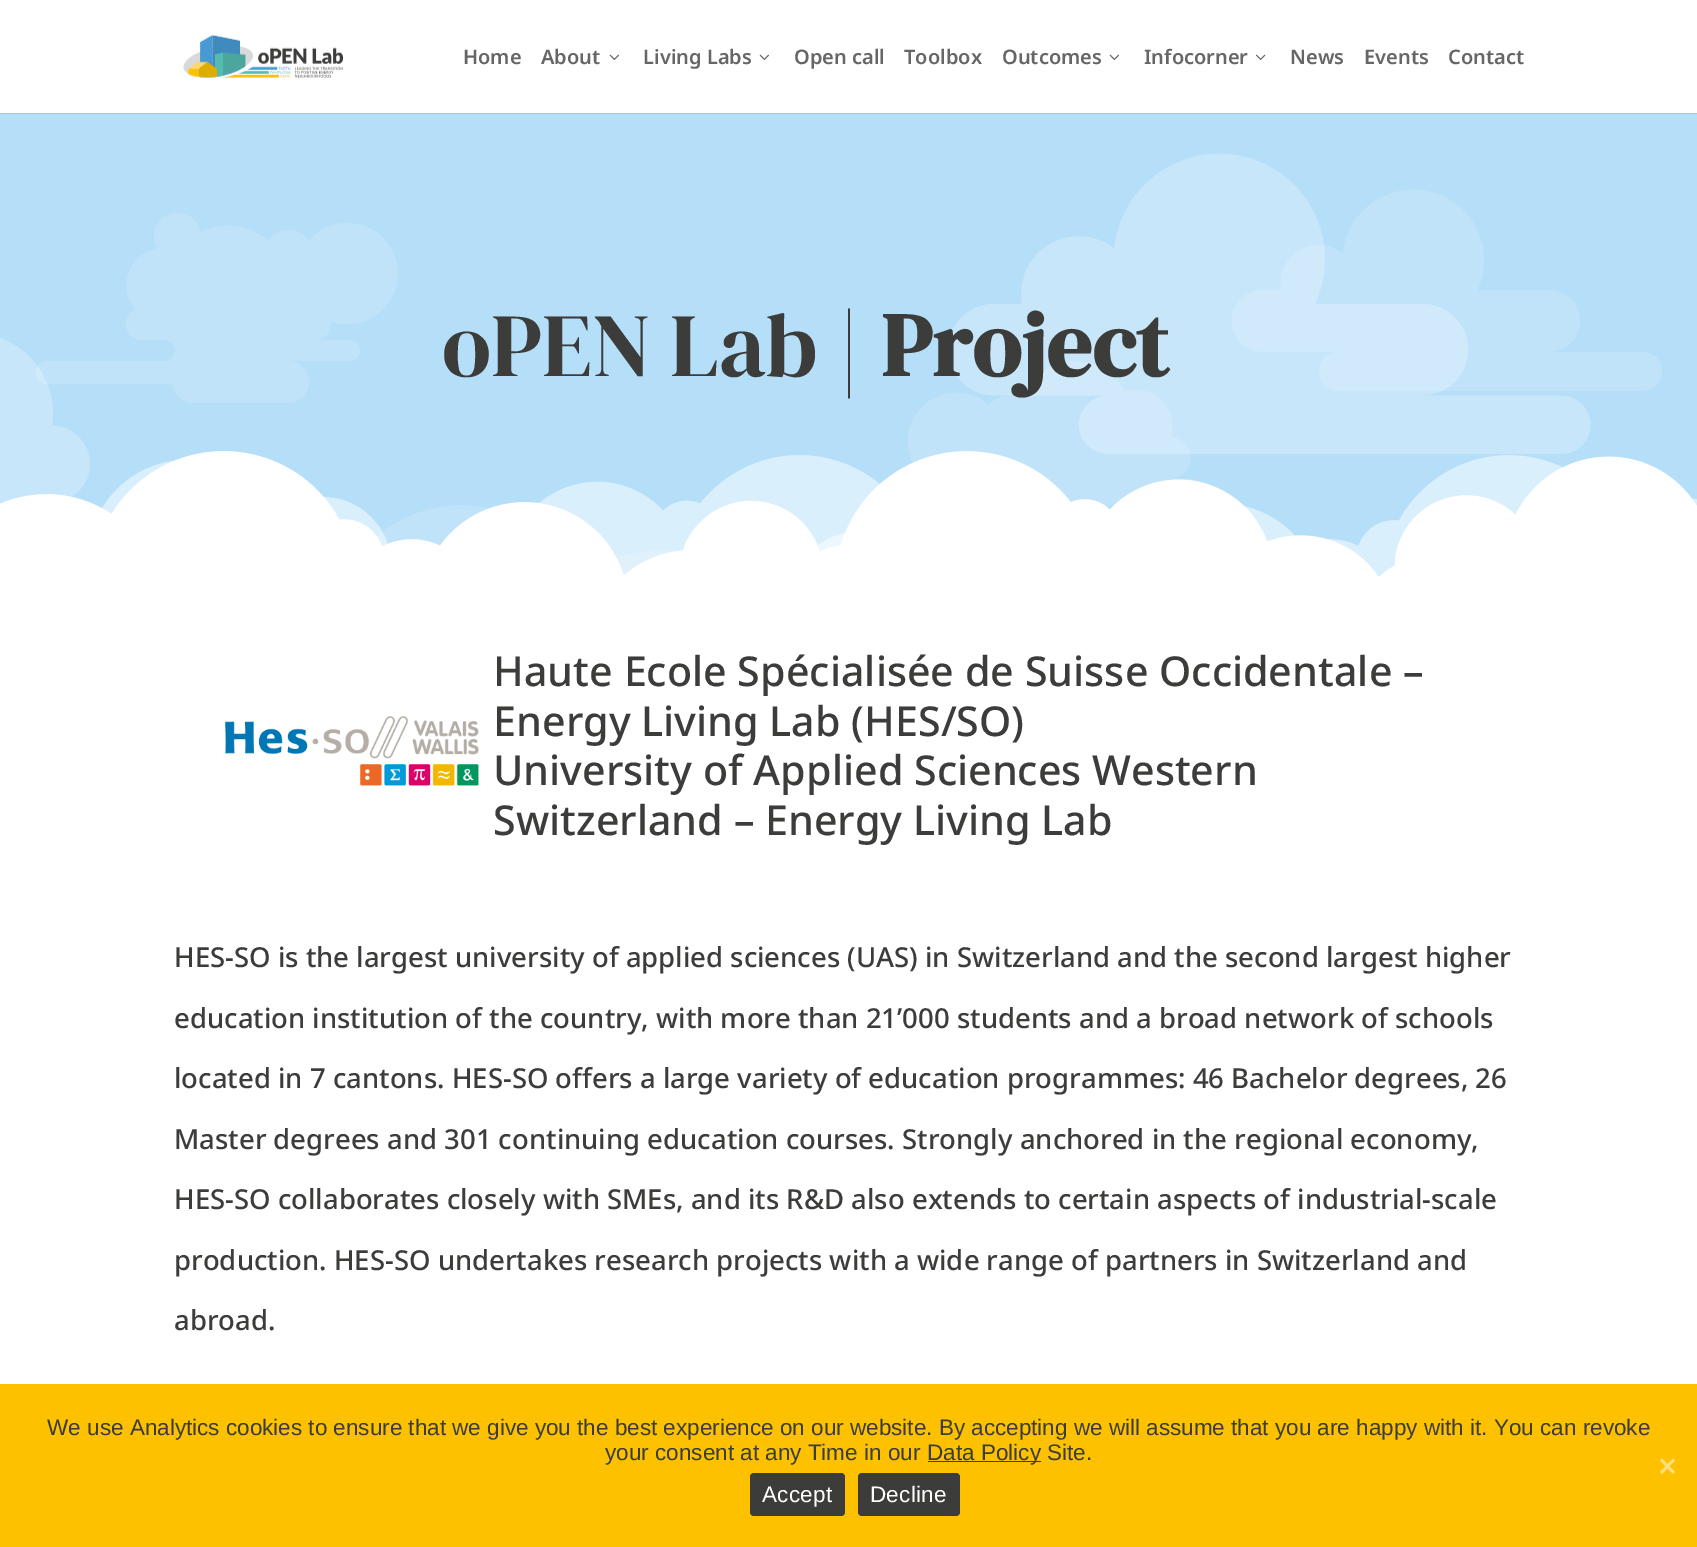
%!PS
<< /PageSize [1697 1547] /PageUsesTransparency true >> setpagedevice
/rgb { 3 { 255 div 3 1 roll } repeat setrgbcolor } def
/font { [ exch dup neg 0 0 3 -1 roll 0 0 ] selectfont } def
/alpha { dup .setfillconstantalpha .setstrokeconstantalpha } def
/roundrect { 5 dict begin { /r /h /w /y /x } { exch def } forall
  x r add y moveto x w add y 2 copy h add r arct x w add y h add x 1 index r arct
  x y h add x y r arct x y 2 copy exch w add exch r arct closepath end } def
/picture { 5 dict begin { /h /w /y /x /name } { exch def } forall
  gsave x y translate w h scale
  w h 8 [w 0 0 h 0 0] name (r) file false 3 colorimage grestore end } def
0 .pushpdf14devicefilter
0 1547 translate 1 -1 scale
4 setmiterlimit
255 255 255 rgb
0 0 1697 1547 rectfill
181 222 248 rgb
0 113 1697 463 rectfill
0.1 alpha
0 0 0 rgb
0 112 moveto 0 114 lineto 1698 114 lineto 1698 1 lineto 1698 112 lineto closepath fill
1 alpha
255 255 255 rgb
0 112 1697 1 rectfill
(img/1.rgb) 183 34 161 44 picture
(img/2.rgb) 609 54 10 6 picture
(img/2.rgb) 759 54 10 6 picture
(img/2.rgb) 1109 54 10 6 picture
(img/3.rgb) 1256 54 10 6 picture
(img/4.rgb) 35 189 1627 387 picture
(img/7.rgb) 0 451 1697 125 picture
(img/5.rgb) 0 338 90 166 picture
(img/6.rgb) 948 153 643 301 picture
gsave
646 530 375 46 rectclip
0.5 alpha
1000 677 moveto 977 677 lineto 1010 677 1011 628 978 626 curveto 989 591 955 557 920 569 curveto 893 514 813 521 795 579 curveto 780 571 763 574 751 585 curveto 730 567 699 565 676 581 curveto 653 598 645 628 655 654 curveto 666 680 693 695 720 691 curveto 720 694 lineto 720 704 728 711 737 711 curveto 1000 711 lineto 1009 711 1017 704 1017 694 curveto 1017 685 1009 677 1000 677 curveto closepath fill
grestore
(img/8.rgb) 225 716 254 70 picture
253 193 0 rgb
0 1384 1697 163 rectfill
60 60 59 rgb
928 1461 113 1 rectfill
254 224 128 rgb
1673 1458.5 moveto 1675 1460.5 lineto 1662 1474 lineto 1660 1472 lineto closepath fill
1660 1460.5 moveto 1662 1458.5 lineto 1675 1472 lineto 1673 1474 lineto closepath fill
60 60 59 rgb
750 1473 95 43 4 roundrect fill
858 1473 102 43 4 roundrect fill
/NotoSans-SemiBold 20 font
102 102 102 rgb
[
  [(Home) 463 64]
  [(About) 541 64]
  [(Living Labs) 643 64]
  [(Open call) 794 64]
  [(Toolbox) 904 64]
  [(Outcomes) 1002 64]
  [(Infocorner) 1144 64]
  [(News) 1290 64]
  [(Events) 1364 64]
  [(Contact) 1448 64]
] { aload pop moveto show } forall
/DMSerifDisplay-Regular 90 font
60 60 59 rgb
442 376 moveto (oPEN Lab |) show
/DMSerifDisplay-Bold 90 font
881 376 moveto (Project) show
/NotoSans-Medium 41.25 font
[
  [(Haute Ecole Spécialisée de Suisse Occidentale –) 493 686]
  [(Energy Living Lab \(HES/SO\)) 493 736]
  [(University of Applied Sciences Western) 493 785]
  [(Switzerland – Energy Living Lab) 493 835]
] { aload pop moveto show } forall
/NotoSans-Medium 27.5 font
[
  [(HES-SO is the largest university of applied sciences \(UAS\) in Switzerland and the second largest higher) 174 967]
  [(education institution of the country, with more than 21’000 students and a broad network of schools) 174 1028]
  [(located in 7 cantons. HES-SO offers a large variety of education programmes: 46 Bachelor degrees, 26) 174 1088]
  [(Master degrees and 301 continuing education courses. Strongly anchored in the regional economy,) 174 1149]
  [(HES-SO collaborates closely with SMEs, and its R&D also extends to certain aspects of industrial-scale) 174 1209]
  [(production. HES-SO undertakes research projects with a wide range of partners in Switzerland and) 174 1270]
  [(abroad.) 174 1330]
] { aload pop moveto show } forall
/LiberationSans-Regular 22.5 font
[
  [(We use Analytics cookies to ensure that we give you the best experience on our website. By accepting we will assume that you are happy with it. You can revoke) 47 1435]
  [(your consent at any Time in our) 605 1460]
  [(Data Policy Site.) 927 1460]
] { aload pop moveto show } forall
255 255 255 rgb
762 1502 moveto 0.25 0 (Accept) ashow
870 1502 moveto 0.25 0 (Decline) ashow
.poppdf14devicefilter showpage
